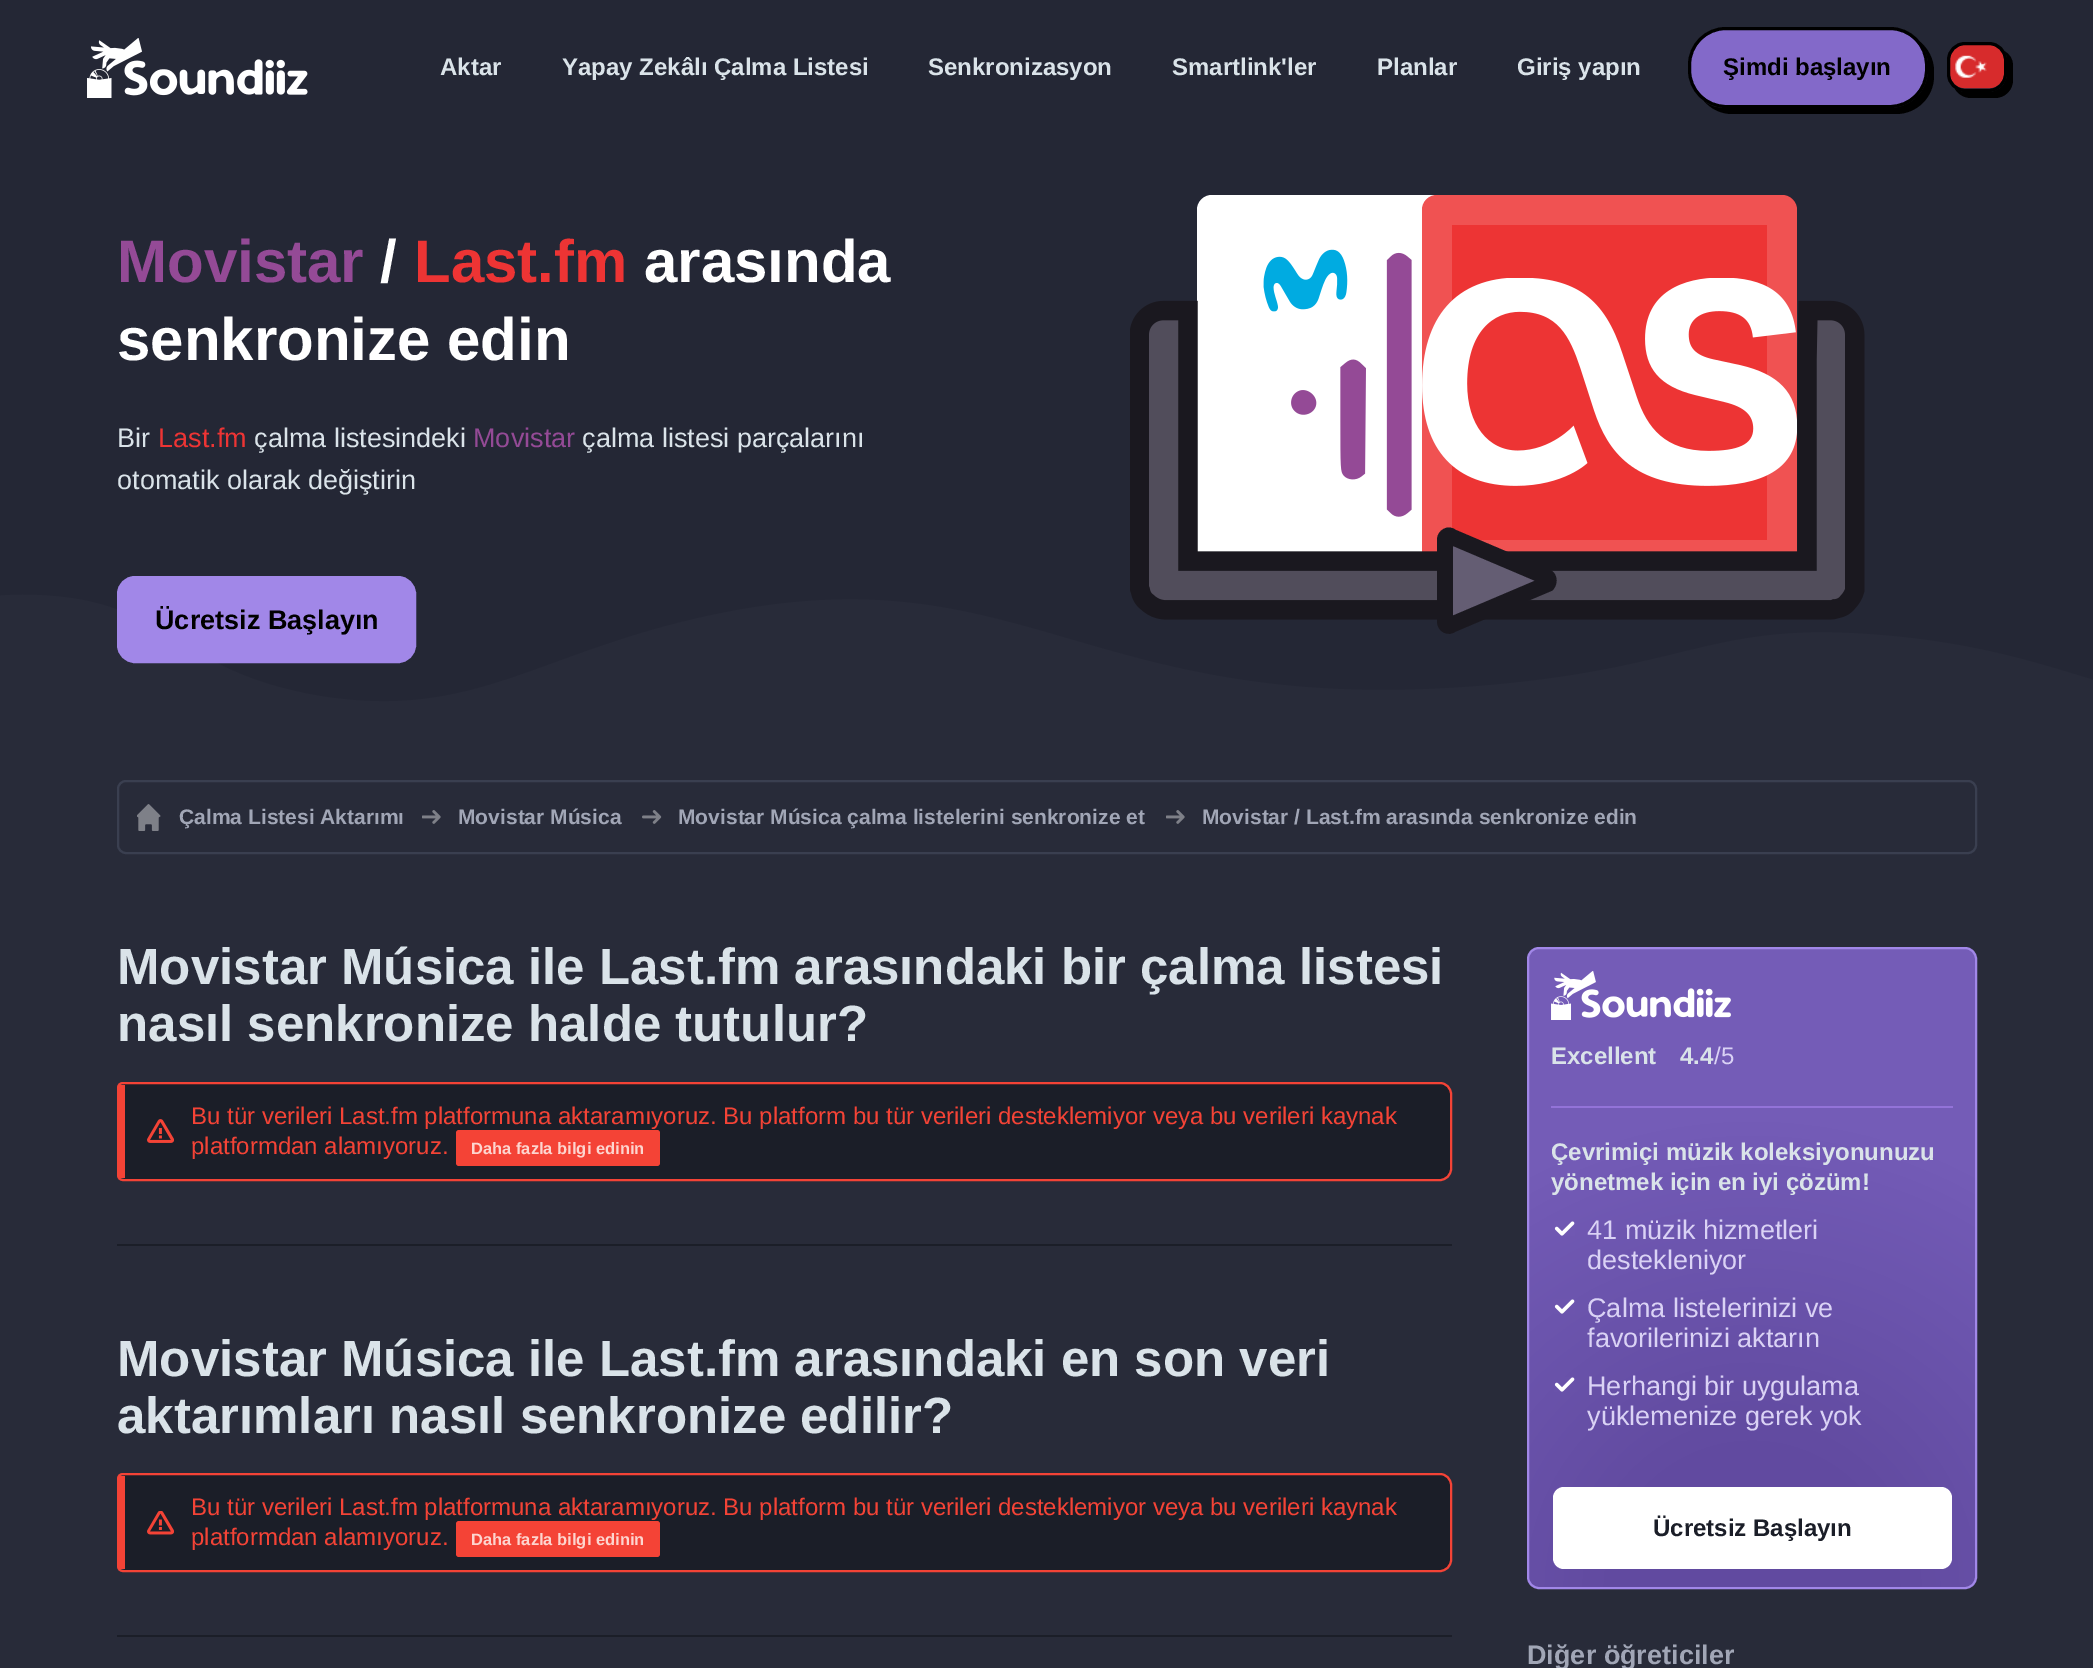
%!PS
<< /PageSize [2093 1668] /PageUsesTransparency true >> setpagedevice
/rgb { 3 { 255 div 3 1 roll } repeat setrgbcolor } def
/font { [ exch dup neg 0 0 3 -1 roll 0 0 ] selectfont } def
/alpha { dup .setfillconstantalpha .setstrokeconstantalpha } def
/roundrect { 5 dict begin { /r /h /w /y /x } { exch def } forall
  x r add y moveto x w add y 2 copy h add r arct x w add y h add x 1 index r arct
  x y h add x y r arct x y 2 copy exch w add exch r arct closepath end } def
/picture { 5 dict begin { /h /w /y /x /name } { exch def } forall
  gsave x y translate w h scale
  w h 8 [w 0 0 h 0 0] name (r) file false 3 colorimage grestore end } def
0 .pushpdf14devicefilter
0 1668 translate 1 -1 scale
4 setmiterlimit
40 43 57 rgb
0 0 2093 1668 rectfill
36 39 53 rgb
0 0 2093 702 rectfill
(img/1.rgb) 87 38 221 60 picture
0 0 0 rgb
1704 101 moveto 1711 109 1721 114 1732 114 curveto 1896 114 lineto 1917 114 1934 97 1934 76 curveto 1934 71 lineto 1934 59 1928 48 1919 41 curveto 1924 47 1928 56 1928 64 curveto 1928 70 lineto 1928 91 1911 108 1890 108 curveto 1725 108 lineto 1717 108 1710 106 1704 101 curveto closepath fill
131 105 201 rgb
1689.5 28.5 237 78 36.5 roundrect gsave fill grestore
0 0 0 rgb
3 setlinewidth
stroke
1955 89 moveto 1958 94 1964 98 1971 98 curveto 1995 98 lineto 2005 98 2013 90 2013 80 curveto 2013 66 lineto 2013 59 2010 54 2004 51 curveto 2006 53 2007 57 2007 60 curveto 2007 74 lineto 2007 83 1999 92 1989 92 curveto 1965 92 lineto 1961 92 1958 90 1955 89 curveto closepath fill
(img/2.rgb) 1950 45 54 44 picture
1948.5 43.5 57 47 16.5 roundrect stroke
gsave
0 572 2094 178 rectclip
40 43 57 rgb
-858 676 moveto -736 609 -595 565 -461 607 curveto -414 622 -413 633 -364 647 curveto -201 690 -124 589 37 595 curveto 171 600 172 671 320 696 curveto 476 721 537 652 712 615 curveto 1028 548 1084 721 1491 685 curveto 1694 667 1713 621 1880 635 curveto 2082 651 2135 725 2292 699 curveto 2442 673 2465 594 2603 575 curveto 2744 556 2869 618 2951 673 curveto 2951 750 lineto -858 751 lineto closepath fill
grestore
161 135 232 rgb
118 577 297 85 17 roundrect gsave fill grestore
2 setlinewidth
stroke
255 255 255 rgb
1197 195 375 375 15 roundrect fill
(img/3.rgb) 1263 249 149 268 picture
0.15 alpha
1212 195 moveto 1204 195 1197 202 1197 210 curveto 1197 555 lineto 1197 563 1204 570 1212 570 curveto 1557 570 lineto 1565 570 1572 563 1572 555 curveto 1572 210 lineto 1572 202 1565 195 1557 195 curveto closepath 1227 225 moveto 1227 540 lineto 1542 540 lineto 1542 225 lineto closepath eofill
1 alpha
237 52 52 rgb
1422 195 375 375 15 roundrect fill
(img/4.rgb) 1422 278 375 208 picture
0.15 alpha
255 255 255 rgb
1437 195 moveto 1429 195 1422 202 1422 210 curveto 1422 555 lineto 1422 563 1429 570 1437 570 curveto 1782 570 lineto 1790 570 1797 563 1797 555 curveto 1797 210 lineto 1797 202 1790 195 1782 195 curveto closepath 1452 225 moveto 1452 540 lineto 1767 540 lineto 1767 225 lineto closepath eofill
1 alpha
(img/5.rgb) 1130 300 735 320 picture
100 93 115 rgb
1548 584 moveto 1451 625 lineto 1449 627 1445 626 1445 622 curveto 1445 540 lineto 1445 536 1449 534 1451 536 curveto 1548 577 lineto 1549 579 1549 582 1548 584 curveto closepath fill
26 24 31 rgb
15.8 setlinewidth
1547.5 584 moveto 1451 625 lineto 1449 627 1445 625.5 1445 621.5 curveto 1445 539.5 lineto 1445 536.5 1449 534 1451 536.5 curveto 1547.5 577.5 lineto 1549 579 1549 582 1547.5 584 curveto closepath stroke
58 63 80 rgb
2 setlinewidth
118 781 1858 72 8 roundrect stroke
(img/6.rgb) 137 804 24 27 picture
(img/7.rgb) 422 810 19 14 picture
(img/8.rgb) 642 810 20 14 picture
(img/7.rgb) 1166 810 19 14 picture
27 30 40 rgb
124 1083 moveto 1440 1083 lineto 1446 1083 1450 1088 1450 1094 curveto 1450 1168 lineto 1450 1174 1446 1179 1440 1179 curveto 124 1179 lineto closepath fill
(img/9.rgb) 147 1119 27 24 picture
244 67 54 rgb
123 1083 moveto 1440 1083 lineto 1446 1083 1451 1088 1451 1094 curveto 1451 1169 lineto 1451 1175 1446 1180 1440 1180 curveto 123 1180 lineto 120 1180 118 1178 118 1175 curveto 118 1088 lineto 118 1085 120 1083 123 1083 curveto closepath stroke
119 1085 6 93 rectfill
456 1130 204 36 3 roundrect fill
27 30 40 rgb
117 1244 1335 2 rectfill
124 1474 moveto 1440 1474 lineto 1446 1474 1450 1479 1450 1485 curveto 1450 1560 lineto 1450 1566 1446 1570 1440 1570 curveto 124 1570 lineto closepath fill
(img/10.rgb) 147 1511 27 24 picture
244 67 54 rgb
123 1474 moveto 1440 1474 lineto 1446 1474 1451 1479 1451 1485 curveto 1451 1560 lineto 1451 1566 1446 1571 1440 1571 curveto 123 1571 lineto 120 1571 118 1569 118 1566 curveto 118 1479 lineto 118 1476 120 1474 123 1474 curveto closepath stroke
119 1476 6 93 rectfill
456 1521 204 36 3 roundrect fill
27 30 40 rgb
117 1635 1335 2 rectfill
gsave 1528 948 448 640 11 roundrect clip newpath 1752 1589 translate 680 680 scale
<< /ShadingType 3 /ColorSpace /DeviceRGB /Coords [0 0 0 0 0 1] /Extend [true true] /Function << /FunctionType 3 /Domain [0 1] /Functions [<< /FunctionType 2 /Domain [0 1] /C0 [0.38 0.29 0.627] /C1 [0.38 0.29 0.627] /N 1 >> << /FunctionType 2 /Domain [0 1] /C0 [0.38 0.29 0.627] /C1 [0.455 0.361 0.718] /N 1 >> << /FunctionType 2 /Domain [0 1] /C0 [0.455 0.361 0.718] /C1 [0.455 0.361 0.718] /N 1 >>] /Bounds [0.2 0.7] /Encode [0 1 0 1 0 1] >> >> shfill grestore
161 135 232 rgb
1528 948 448 640 11 roundrect stroke
(img/11.rgb) 1551 971 180 49 picture
147 115 216 rgb
1551 1106 402 2 rectfill
(img/12.rgb) 1554 1221 21 15 picture
(img/13.rgb) 1554 1299 21 15 picture
(img/14.rgb) 1554 1377 21 15 picture
255 255 255 rgb
1553 1487 399 82 11 roundrect fill
/LiberationSans-Bold 24 font
218 227 233 rgb
[
  [(Aktar) 440 75]
  [(Yapay Zekâlı Çalma Listesi) 562 75]
  [(Senkronizasyon) 928 75]
  [(Smartlink'ler) 1172 75]
  [(Planlar) 1377 75]
  [(Giriş yapın) 1517 75]
] { aload pop moveto show } forall
0 0 0 rgb
1723 75 moveto (Şimdi başlayın) show
/LiberationSans-Bold 60 font
148 74 150 rgb
117 282 moveto (Movistar) show
255 255 255 rgb
380 282 moveto (/) show
237 52 52 rgb
414 282 moveto (Last.fm) show
255 255 255 rgb
644 282 moveto (arasında) show
117 360 moveto (senkronize edin) show
/LiberationSans-Regular 27 font
218 227 233 rgb
117 447 moveto (Bir) show
237 52 52 rgb
158 447 moveto (Last.fm) show
218 227 233 rgb
254 447 moveto (çalma listesindeki) show
148 74 150 rgb
473 447 moveto (Movistar) show
218 227 233 rgb
582 447 moveto (çalma listesi parçalarını) show
117 489 moveto (otomatik olarak değiştirin) show
/LiberationSans-Bold 27 font
0 0 0 rgb
155 629 moveto (Ücretsiz Başlayın) show
/LiberationSans-Bold 21 font
161 166 182 rgb
[
  [(Çalma Listesi Aktarımı) 179 824]
  [(Movistar Música) 458 824]
  [(Movistar Música çalma listelerini senkronize et) 678 824]
  [(Movistar / Last.fm arasında senkronize edin) 1202 824]
] { aload pop moveto show } forall
/LiberationSans-Bold 51 font
218 227 233 rgb
117 984 moveto (Movistar Música ile Last.fm arasındaki bir çalma listesi) show
117 1041 moveto (nasıl senkronize halde tutulur?) show
/LiberationSans-Regular 24 font
244 67 54 rgb
191 1124 moveto (Bu tür verileri Last.fm platformuna aktaramıyoruz. Bu platform bu tür verileri desteklemiyor veya bu verileri kaynak) show
191 1154 moveto (platformdan alamıyoruz.) show
/LiberationSans-Bold 16.5 font
253 213 207 rgb
471 1154 moveto (Daha fazla bilgi edinin) show
/LiberationSans-Bold 51 font
218 227 233 rgb
117 1376 moveto (Movistar Música ile Last.fm arasındaki en son veri) show
117 1433 moveto (aktarımları nasıl senkronize edilir?) show
/LiberationSans-Regular 24 font
244 67 54 rgb
191 1515 moveto (Bu tür verileri Last.fm platformuna aktaramıyoruz. Bu platform bu tür verileri desteklemiyor veya bu verileri kaynak) show
191 1545 moveto (platformdan alamıyoruz.) show
/LiberationSans-Bold 16.5 font
253 213 207 rgb
471 1545 moveto (Daha fazla bilgi edinin) show
/LiberationSans-Bold 24 font
218 227 233 rgb
1551 1064 moveto (Excellent) show
1680 1064 moveto (4.4) show
/LiberationSans-Regular 24 font
218 210 245 rgb
1714 1064 moveto (/5) show
/LiberationSans-Bold 24 font
218 227 233 rgb
1551 1160 moveto (Çevrimiçi müzik koleksiyonunuzu) show
1551 1190 moveto (yönetmek için en iyi çözüm!) show
/LiberationSans-Regular 27 font
218 210 245 rgb
[
  [(41 müzik hizmetleri) 1587 1239]
  [(destekleniyor) 1587 1269]
  [(Çalma listelerinizi ve) 1587 1317]
  [(favorilerinizi aktarın) 1587 1347]
  [(Herhangi bir uygulama) 1587 1395]
  [(yüklemenize gerek yok) 1587 1425]
] { aload pop moveto show } forall
/LiberationSans-Bold 24 font
27 30 40 rgb
1653 1536 moveto (Ücretsiz Başlayın) show
/LiberationSans-Bold 27 font
161 166 182 rgb
1527 1664 moveto (Diğer öğreticiler) show
.poppdf14devicefilter showpage
